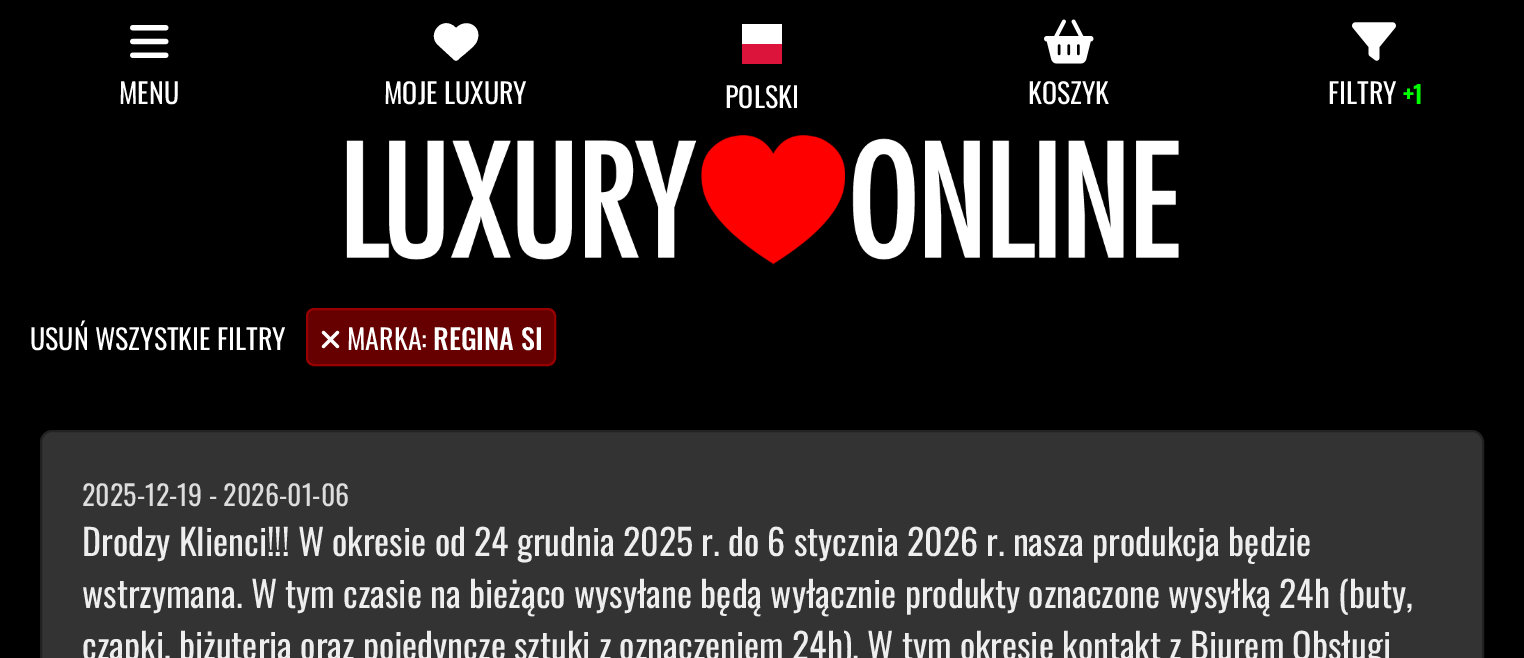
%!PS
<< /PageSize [1524 658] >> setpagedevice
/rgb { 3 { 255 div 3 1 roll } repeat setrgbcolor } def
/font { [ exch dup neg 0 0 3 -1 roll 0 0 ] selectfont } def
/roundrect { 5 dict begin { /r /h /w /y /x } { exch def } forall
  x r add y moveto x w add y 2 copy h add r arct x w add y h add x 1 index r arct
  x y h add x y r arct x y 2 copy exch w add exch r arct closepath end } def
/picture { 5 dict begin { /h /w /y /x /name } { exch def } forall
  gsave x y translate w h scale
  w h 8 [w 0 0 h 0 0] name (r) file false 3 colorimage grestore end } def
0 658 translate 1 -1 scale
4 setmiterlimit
0 0 0 rgb
0 0 1524 658 rectfill
(img/1.rgb) 130 25 39 33 picture
255 255 255 rgb
438 45 moveto 451 57 lineto 456 62 456 62 461 57 curveto 466 53 lineto 470 49 475 46 477 41 curveto 483 27 467 17 456 28 curveto 443 14 426 34 438 45 curveto closepath fill
742 24 40 20 rectfill
220 20 60 rgb
742 44 40 20 rectfill
(img/2.rgb) 1044 19 50 45 picture
(img/3.rgb) 1352 22 44 39 picture
(img/4.rgb) 346 135 833 130 picture
102 0 0 rgb
307 309 248 56 7 roundrect gsave fill grestore
153 0 0 rgb
2 setlinewidth
stroke
(img/5.rgb) 321 330 19 19 picture
51 51 51 rgb
41 431 1442 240 11 roundrect gsave fill grestore
34 34 34 rgb
stroke
/Oswald-Regular 28 font
255 255 255 rgb
[
  [(MENU) 119 104]
  [(MOJE LUXURY) 384 104]
  [(POLSKI) 725 108]
  [(KOSZYK) 1028 104]
  [(FILTRY) 1328 104]
] { aload pop moveto show } forall
/Oswald-Bold 24 font
0 255 0 rgb
1403 104 moveto (+1) show
/Oswald-Regular 28 font
255 255 255 rgb
30 350 moveto (USUŃ WSZYSTKIE FILTRY) show
347 350 moveto (MARKA:) show
/Oswald-Medium 28 font
433 350 moveto (REGINA SI) show
/Oswald-Regular 28 font
221 221 221 rgb
82 506 moveto (2025-12-19 - 2026-01-06) show
/Oswald-Regular 36 font
238 238 238 rgb
[
  [(Drodzy Klienci!!! W okresie od 24 grudnia 2025 r. do 6 stycznia 2026 r. nasza produkcja będzie) 82 556]
  [(wstrzymana. W tym czasie na bieżąco wysyłane będą wyłącznie produkty oznaczone wysyłką 24h \(buty,) 82 608]
  [(czapki, biżuteria oraz pojedyncze sztuki z oznaczeniem 24h\). W tym okresie kontakt z Biurem Obsługi) 82 660]
] { aload pop moveto show } forall
showpage
